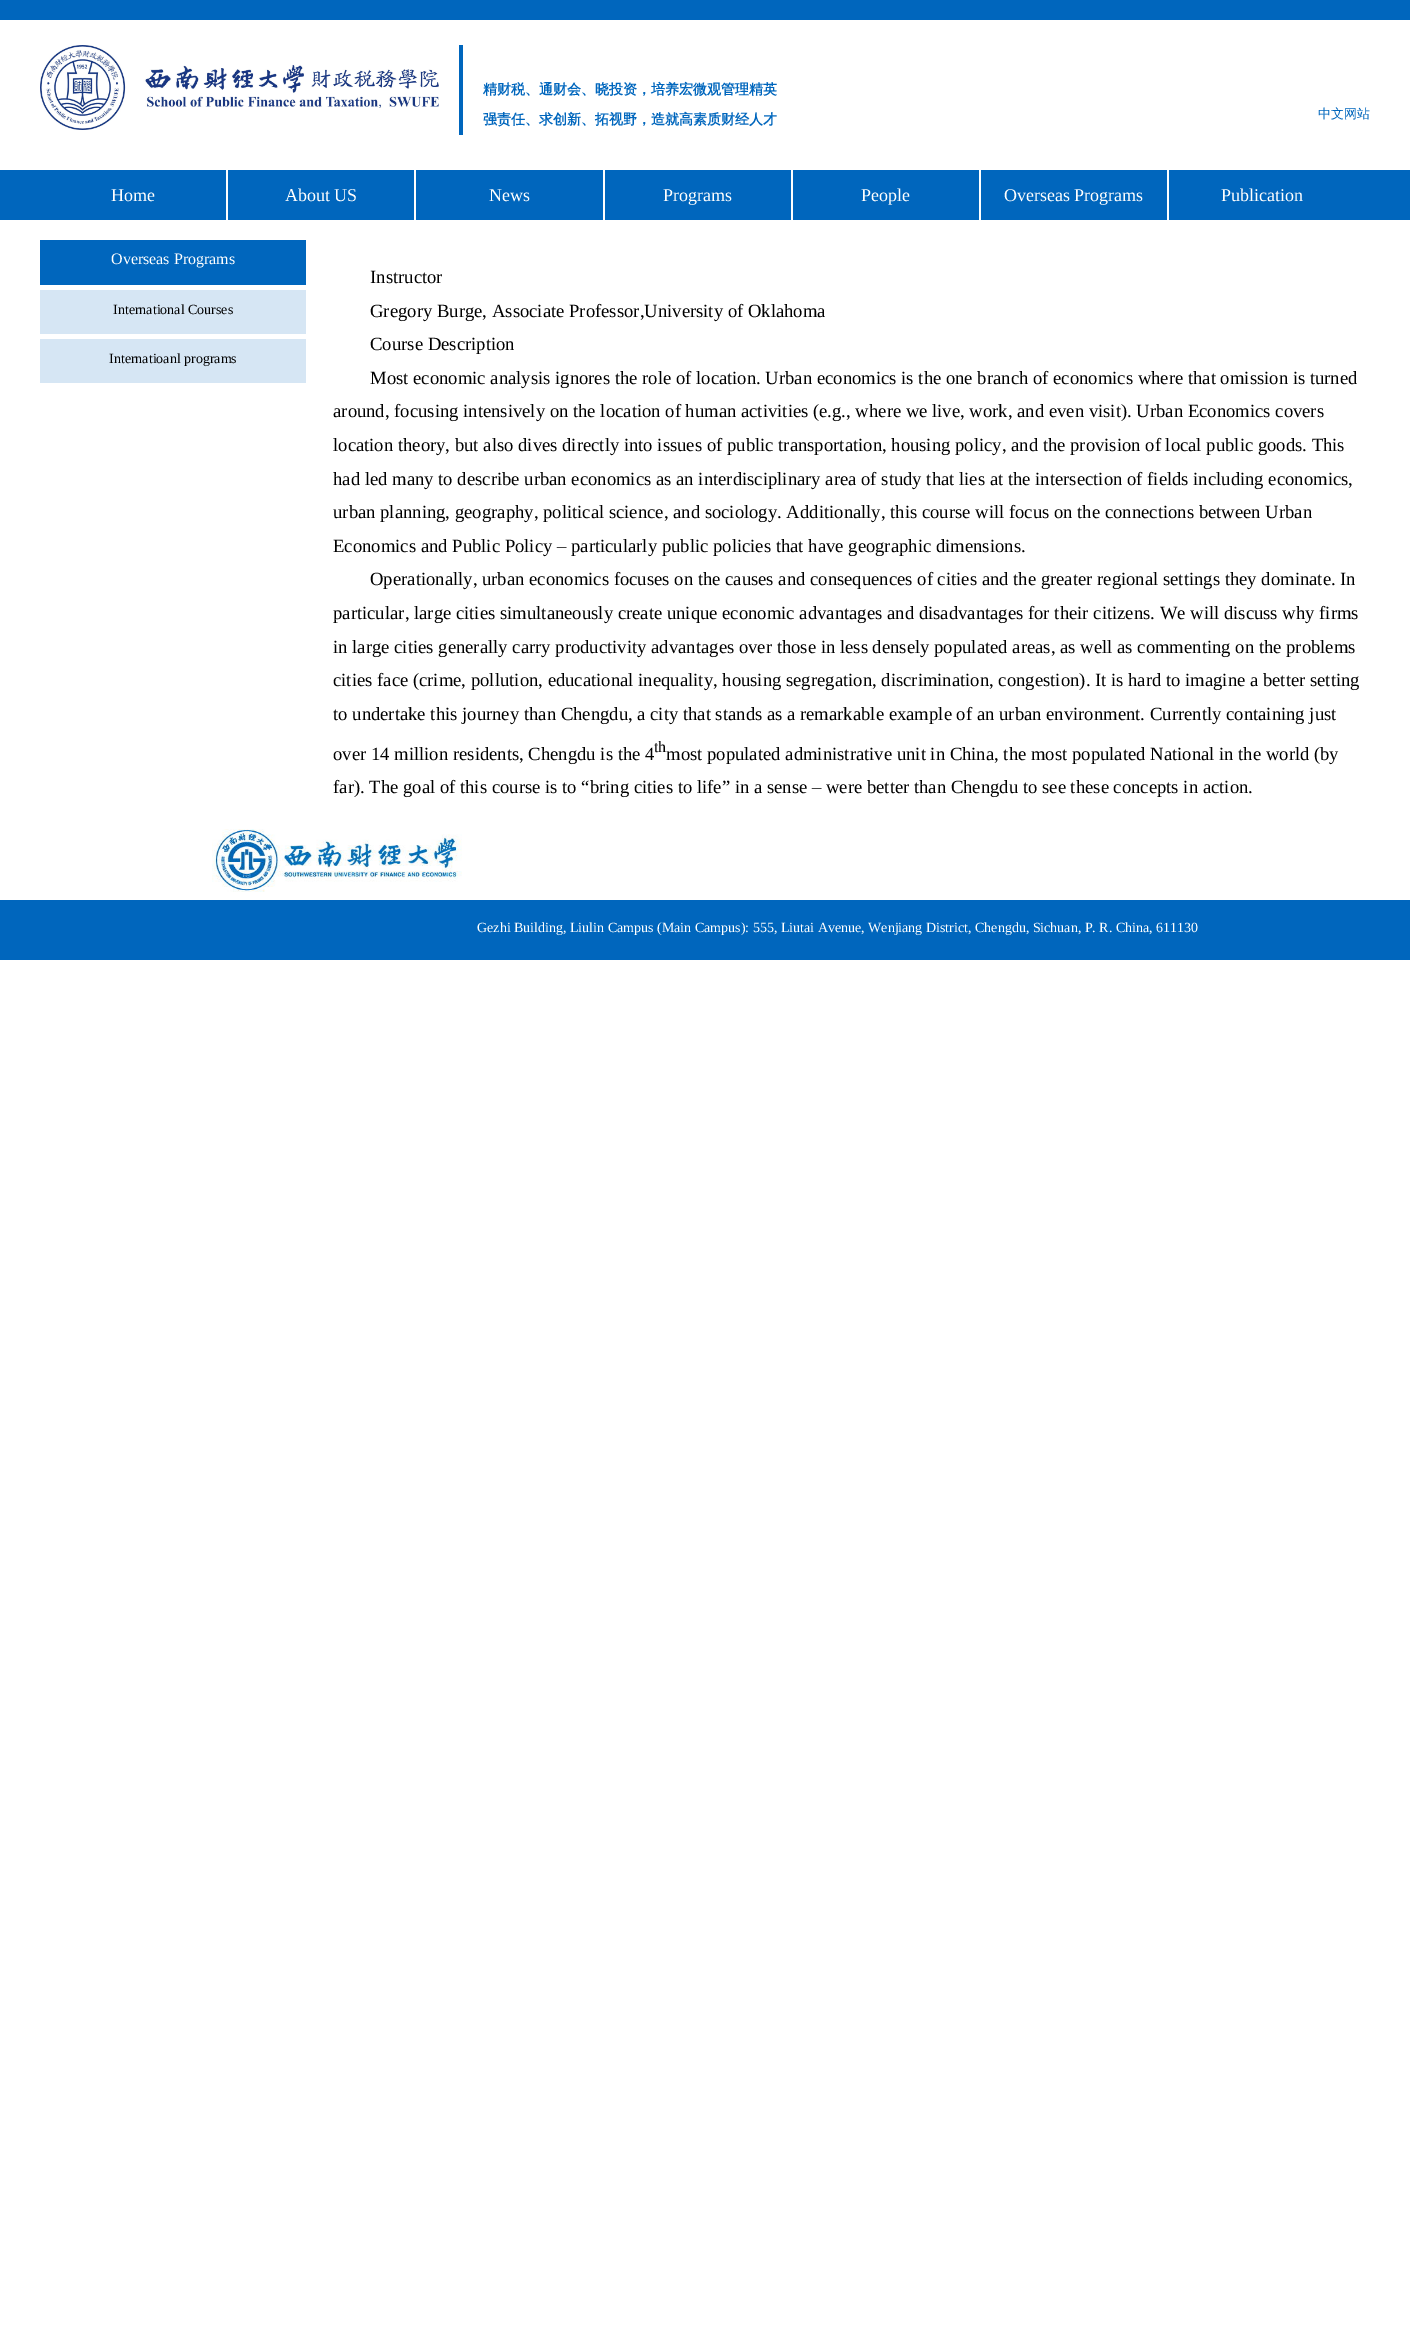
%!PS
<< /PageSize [1410 2331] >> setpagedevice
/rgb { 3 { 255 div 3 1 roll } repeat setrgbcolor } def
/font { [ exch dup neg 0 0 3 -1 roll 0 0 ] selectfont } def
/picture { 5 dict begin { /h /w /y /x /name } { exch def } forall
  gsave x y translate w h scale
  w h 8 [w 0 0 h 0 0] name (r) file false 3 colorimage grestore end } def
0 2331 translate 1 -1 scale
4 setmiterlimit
255 255 255 rgb
0 0 1410 2331 rectfill
0 102 189 rgb
0 0 1410 20 rectfill
(img/1.rgb) 40 45 399 85 picture
[
  [459 45 4 90 0 102 189]
  [0 170 1410 50 0 102 189]
  [226 170 2 50 255 255 255]
  [414 170 2 50 255 255 255]
  [603 170 2 50 255 255 255]
  [791 170 2 50 255 255 255]
  [979 170 2 50 255 255 255]
  [1167 170 2 50 255 255 255]
  [40 240 266 45 0 102 189]
  [40 290 266 44 214 230 244]
  [40 339 266 44 214 230 244]
] { aload pop rgb rectfill } forall
(img/2.rgb) 212 829 250 63 picture
0 102 189 rgb
0 900 1410 60 rectfill
/WenQuanYiZenHei-Bold 14 font
483 94 moveto (精财税、通财会、晓投资，培养宏微观管理精英) show
483 124 moveto (强责任、求创新、拓视野，造就高素质财经人才) show
/WenQuanYiZenHei-Medium 13 font
1318 118 moveto (中文网站) show
/LiberationSerif-Regular 18 font
255 255 255 rgb
[
  [(Home) 111 201]
  [(About US) 285 201]
  [(News) 489 201]
  [(Programs) 663 201]
  [(People) 861 201]
  [(Overseas Programs) 1004 201]
  [(Publication) 1221 201]
] { aload pop moveto show } forall
/LiberationSerif-Regular 16 font
111 264 moveto (Overseas Programs) show
/LiberationSerif-Regular 14 font
0 0 0 rgb
113 314 moveto (International Courses) show
109 363 moveto (Internatioanl programs) show
/LiberationSerif-Regular 18.67 font
[
  [(Instructor) 370 283]
  [(Gregory Burge, Associate Professor,University of Oklahoma) 370 317]
  [(Course Description) 370 350]
  [(Most economic analysis ignores the role of location. Urban economics is the one branch of economics where that omission is turned) 370 384]
  [(around, focusing intensively on the location of human activities \(e.g., where we live, work, and even visit\). Urban Economics covers) 333 417]
  [(location theory, but also dives directly into issues of public transportation, housing policy, and the provision of local public goods. This) 333 451]
  [(had led many to describe urban economics as an interdisciplinary area of study that lies at the intersection of fields including economics,) 333 485]
  [(urban planning, geography, political science, and sociology. Additionally, this course will focus on the connections between Urban) 333 518]
  [(Economics and Public Policy – particularly public policies that have geographic dimensions.) 333 552]
  [(Operationally, urban economics focuses on the causes and consequences of cities and the greater regional settings they dominate. In) 370 585]
  [(particular, large cities simultaneously create unique economic advantages and disadvantages for their citizens. We will discuss why firms) 333 619]
  [(in large cities generally carry productivity advantages over those in less densely populated areas, as well as commenting on the problems) 333 653]
  [(cities face \(crime, pollution, educational inequality, housing segregation, discrimination, congestion\). It is hard to imagine a better setting) 333 686]
  [(to undertake this journey than Chengdu, a city that stands as a remarkable example of an urban environment. Currently containing just) 333 720]
  [(over 14 million residents, Chengdu is the 4) 333 760]
] { aload pop moveto show } forall
/LiberationSerif-Regular 16 font
654 752 moveto (th) show
/LiberationSerif-Regular 18.67 font
666 760 moveto (most populated administrative unit in China, the most populated National in the world \(by) show
333 793 moveto (far\). The goal of this course is to “bring cities to life” in a sense – were better than Chengdu to see these concepts in action.) show
/LiberationSerif-Regular 14 font
255 255 255 rgb
477 932 moveto (Gezhi Building, Liulin Campus \(Main Campus\): 555, Liutai Avenue, Wenjiang District, Chengdu, Sichuan, P. R. China, 611130) show
showpage
